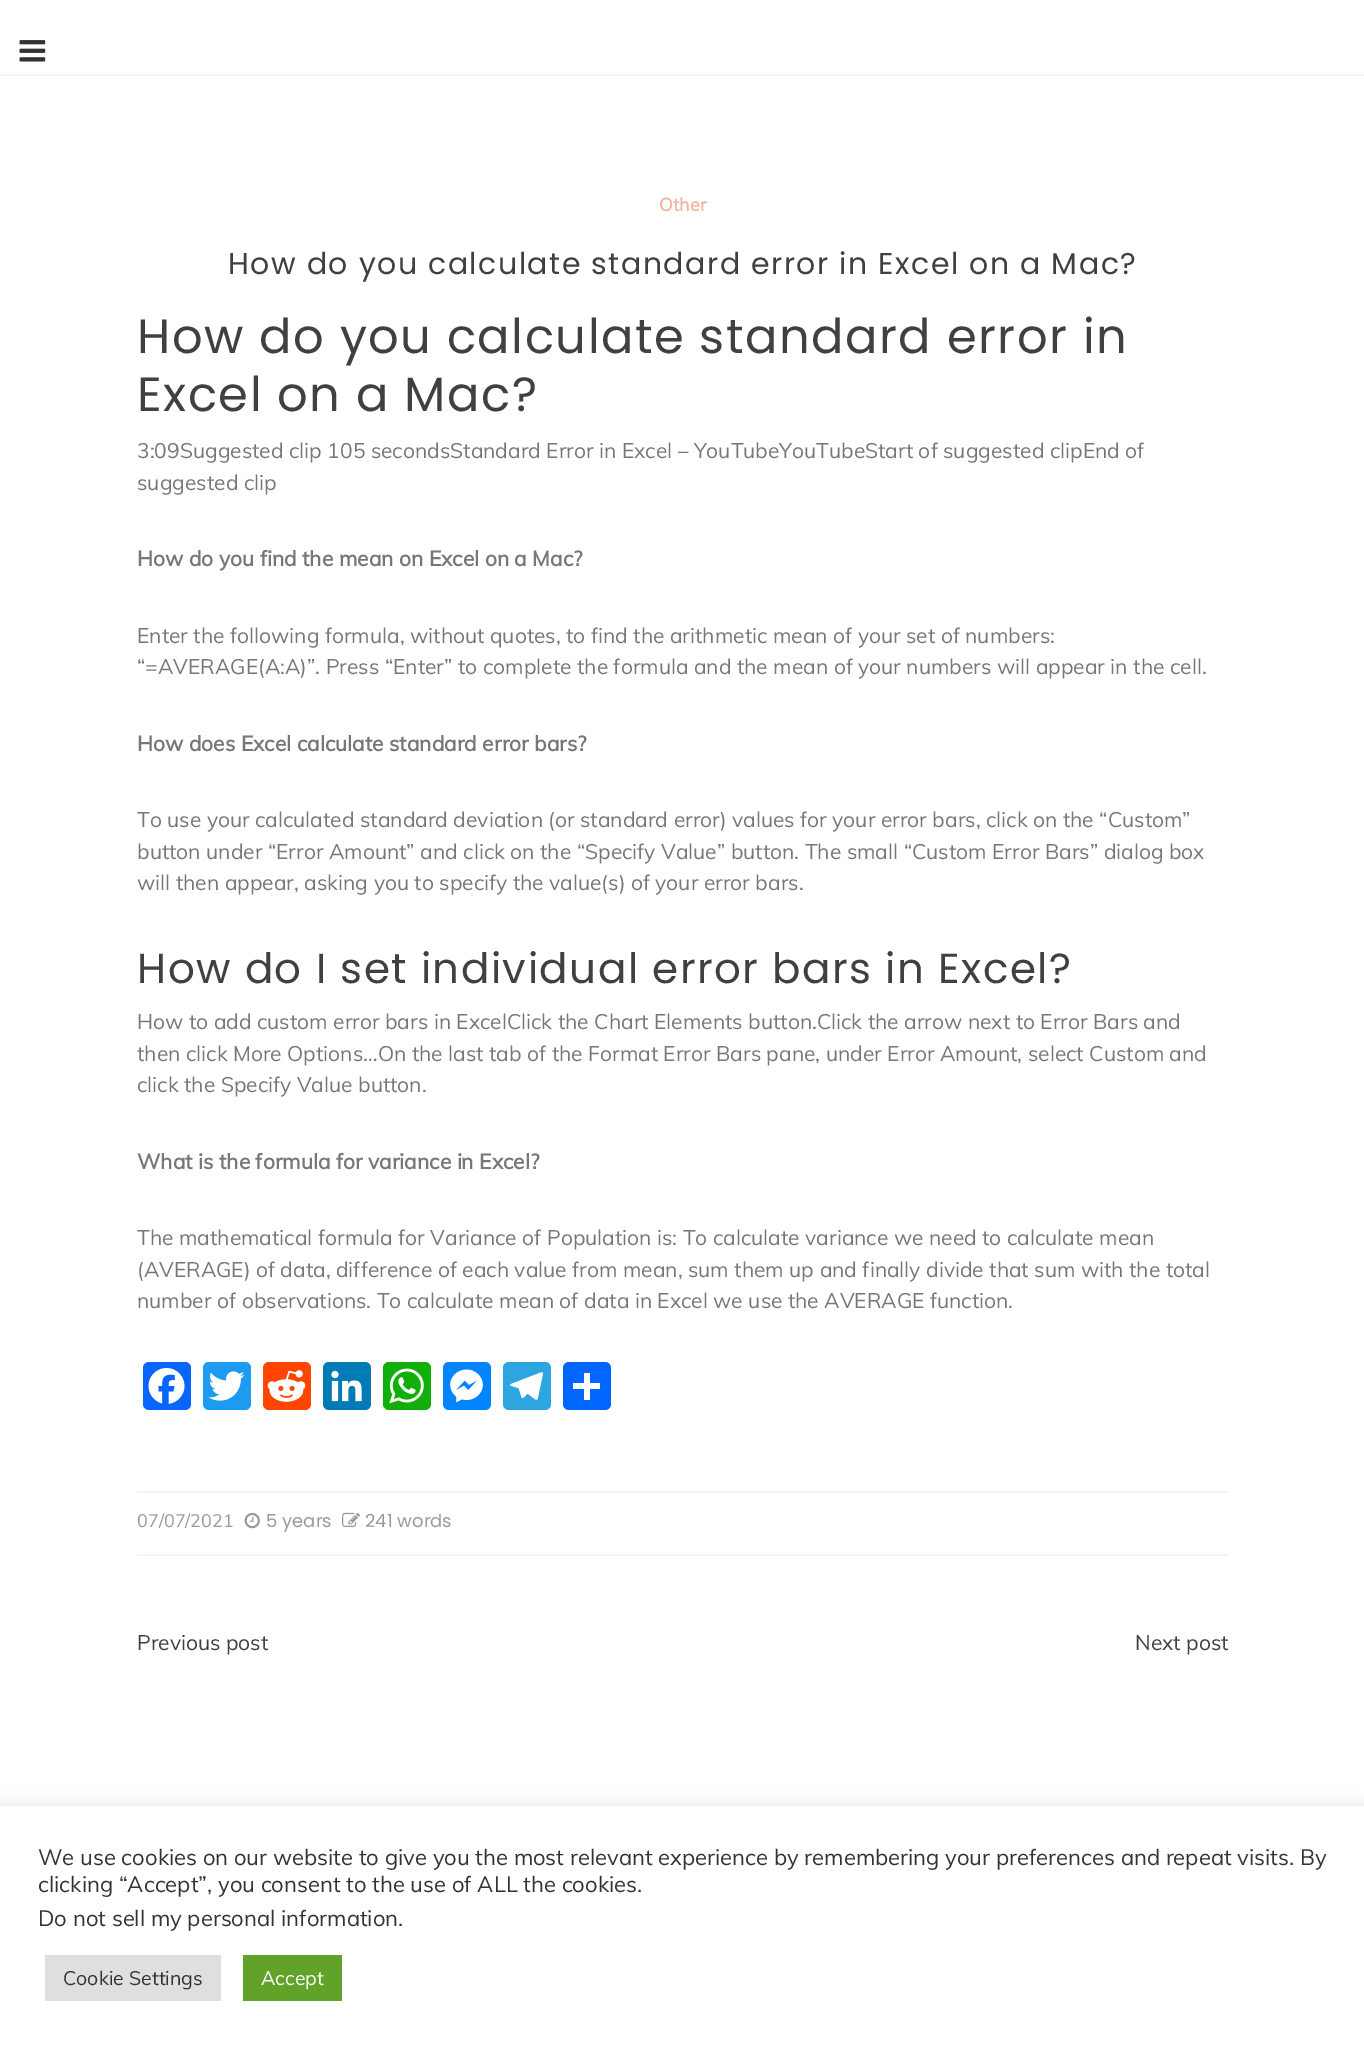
%!PS
<< /PageSize [1364 2046] /PageUsesTransparency true >> setpagedevice
/rgb { 3 { 255 div 3 1 roll } repeat setrgbcolor } def
/font { [ exch dup neg 0 0 3 -1 roll 0 0 ] selectfont } def
/alpha { dup .setfillconstantalpha .setstrokeconstantalpha } def
/roundrect { 5 dict begin { /r /h /w /y /x } { exch def } forall
  x r add y moveto x w add y 2 copy h add r arct x w add y h add x 1 index r arct
  x y h add x y r arct x y 2 copy exch w add exch r arct closepath end } def
/shadow { 12 dict begin { /a /b /q /h /w /y /x } { exch def } forall gsave /was 0 def
  9 -2 -9 { dup b mul 4 div /e exch def 1 sub .425 mul 2.718 exch exp 1 add a .99 .min exch div /now exch def
    1 1 now sub 1 was sub div sub alpha /was now def
    w h .min e 2 mul add 0 gt { x e sub y e sub w e 2 mul add h e 2 mul add
      q e add b .6 mul add w h .min 2 div e add .min 0 .max roundrect fill } if } for grestore end } def
/picture { 5 dict begin { /h /w /y /x /name } { exch def } forall
  gsave x y translate w h scale
  w h 8 [w 0 0 h 0 0] name (r) file false 3 colorimage grestore end } def
0 .pushpdf14devicefilter
0 2046 translate 1 -1 scale
4 setmiterlimit
255 255 255 rgb
0 0 1364 2046 rectfill
245 245 245 rgb
0 74 1364 2 rectfill
(img/1.rgb) 19 40 27 22 picture
8 102 255 rgb
143 1362 48 48 6 roundrect fill
(img/2.rgb) 148 1368 37 36 picture
29 155 240 rgb
203 1362 48 48 6 roundrect fill
(img/3.rgb) 208 1371 37 30 picture
255 69 0 rgb
263 1362 48 48 6 roundrect fill
(img/4.rgb) 267 1370 39 32 picture
0 123 181 rgb
323 1362 48 48 6 roundrect fill
(img/5.rgb) 331 1370 31 32 picture
18 175 10 rgb
383 1362 48 48 6 roundrect fill
(img/6.rgb) 389 1368 35 36 picture
0 132 255 rgb
443 1362 48 48 6 roundrect fill
(img/7.rgb) 450 1369 33 34 picture
44 165 224 rgb
503 1362 48 48 6 roundrect fill
(img/8.rgb) 510 1372 33 28 picture
1 102 255 rgb
563 1362 48 48 6 roundrect fill
[
  [584 1373 6 27 255 255 255]
  [573 1383 27 6 255 255 255]
  [137 1491 1092 2 245 245 245]
  [137 1554 1092 2 245 245 245]
] { aload pop rgb rectfill } forall
(img/9.rgb) 244 1512 16 17 picture
(img/10.rgb) 342 1512 18 15 picture
172 171 171 rgb
0 1805 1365 240 0 7.5 0.3 shadow
[
  [0 1806 1364 240 255 255 255]
  [45 1955 176 46 222 223 224]
  [243 1955 99 46 97 162 41]
] { aload pop rgb rectfill } forall
/Muli-Bold 18 font
241 180 163 rgb
659 211 moveto (Other) show
/Poppins-Regular 30 font
64 64 64 rgb
228 274 moveto 1.5 0 (How do you calculate standard error in Excel on a Mac?) ashow
/Poppins-Regular 48 font
137 353 moveto 1.5 0 (How do you calculate standard error in) ashow
137 411 moveto 1.5 0 (Excel on a Mac?) ashow
/Muli-Regular 21 font
119 119 119 rgb
137 458 moveto (3:09Suggested clip 105 secondsStandard Error in Excel – YouTubeYouTubeStart of suggested clipEnd of) show
137 490 moveto (suggested clip) show
/Muli-Bold 21 font
137 566 moveto (How do you find the mean on Excel on a Mac?) show
/Muli-Regular 21 font
137 643 moveto (Enter the following formula, without quotes, to find the arithmetic mean of your set of numbers:) show
137 674 moveto (“=AVERAGE\(A:A\)”. Press “Enter” to complete the formula and the mean of your numbers will appear in the cell.) show
/Muli-Bold 21 font
137 751 moveto (How does Excel calculate standard error bars?) show
/Muli-Regular 21 font
[
  [(To use your calculated standard deviation \(or standard error\) values for your error bars, click on the “Custom”) 137 827]
  [(button under “Error Amount” and click on the “Specify Value” button. The small “Custom Error Bars” dialog box) 137 859]
  [(will then appear, asking you to specify the value\(s\) of your error bars.) 137 890]
] { aload pop moveto show } forall
/Poppins-Regular 42 font
64 64 64 rgb
137 983 moveto 1.5 0 (How do I set individual error bars in Excel?) ashow
/Muli-Regular 21 font
119 119 119 rgb
[
  [(How to add custom error bars in ExcelClick the Chart Elements button.Click the arrow next to Error Bars and) 137 1029]
  [(then click More Options…On the last tab of the Format Error Bars pane, under Error Amount, select Custom and) 137 1061]
  [(click the Specify Value button.) 137 1092]
] { aload pop moveto show } forall
/Muli-Bold 21 font
137 1169 moveto (What is the formula for variance in Excel?) show
/Muli-Regular 21 font
[
  [(The mathematical formula for Variance of Population is: To calculate variance we need to calculate mean) 137 1245]
  [(\(AVERAGE\) of data, difference of each value from mean, sum them up and finally divide that sum with the total) 137 1277]
  [(number of observations. To calculate mean of data in Excel we use the AVERAGE function.) 137 1308]
] { aload pop moveto show } forall
/Muli-Regular 18 font
153 153 153 rgb
137 1527 moveto (07/07/2021) show
/Poppins-Regular 18 font
266 1527 moveto (5 years) show
365 1527 moveto (241 words) show
/Muli-Regular 21 font
64 64 64 rgb
137 1650 moveto (Previous post) show
1135 1650 moveto (Next post) show
/Muli-Regular 22 font
51 51 51 rgb
[
  [(We use cookies on our website to give you the most relevant experience by remembering your preferences and repeat visits. By) 38 1865]
  [(clicking “Accept”, you consent to the use of ALL the cookies.) 38 1892]
  [(Do not sell my personal information.) 38 1926]
] { aload pop moveto show } forall
/Muli-Regular 19.5 font
63 1985 moveto (Cookie Settings) show
255 255 255 rgb
261 1985 moveto (Accept) show
.poppdf14devicefilter showpage
